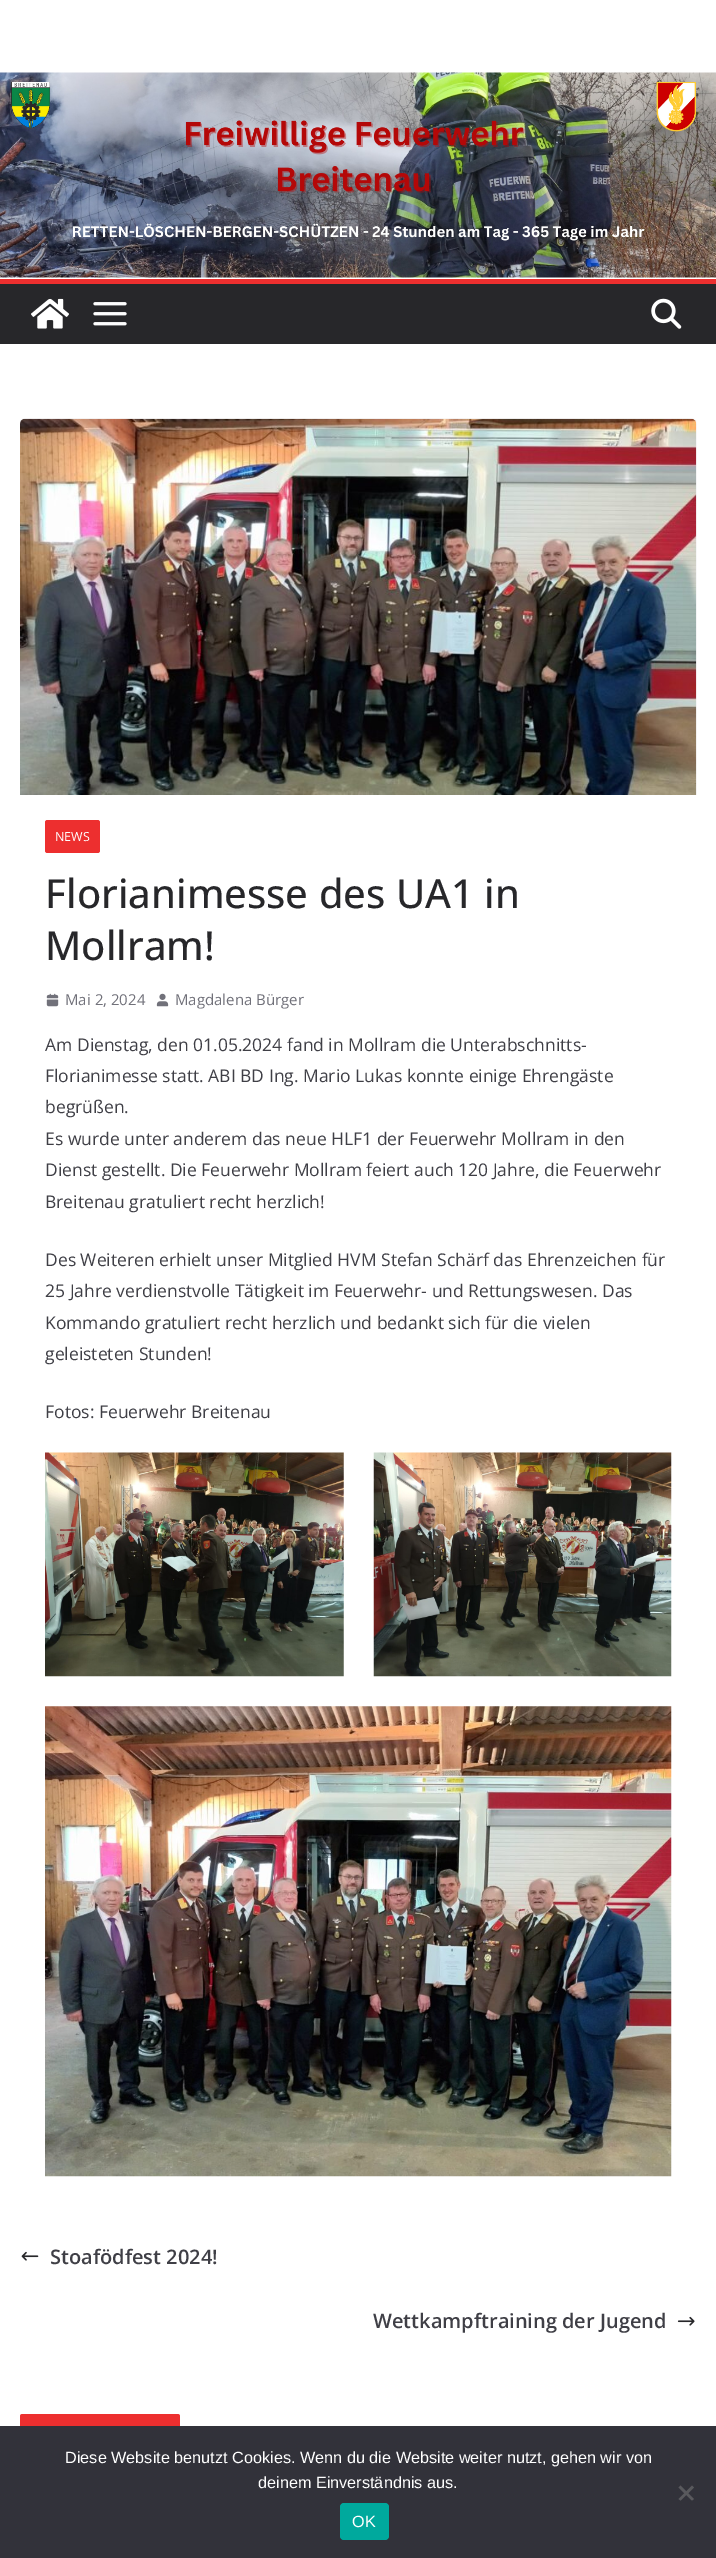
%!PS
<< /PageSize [716 2558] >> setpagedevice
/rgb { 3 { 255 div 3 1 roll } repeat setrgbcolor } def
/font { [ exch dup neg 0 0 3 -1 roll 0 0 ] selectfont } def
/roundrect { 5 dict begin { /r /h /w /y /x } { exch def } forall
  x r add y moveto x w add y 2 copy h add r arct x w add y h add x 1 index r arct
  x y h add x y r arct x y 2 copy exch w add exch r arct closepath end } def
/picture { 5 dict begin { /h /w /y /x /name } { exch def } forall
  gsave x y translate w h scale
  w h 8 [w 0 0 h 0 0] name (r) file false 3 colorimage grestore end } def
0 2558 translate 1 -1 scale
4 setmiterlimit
255 255 255 rgb
0 0 716 2558 rectfill
(img/1.rgb) 0 72 716 206 picture
39 39 42 rgb
0 284 716 60 rectfill
237 47 47 rgb
0 279 716 5 rectfill
(img/2.rgb) 31 298 38 31 picture
(img/3.rgb) 93 302 34 24 picture
(img/4.rgb) 651 298 31 31 picture
(img/5.rgb) 20 418 677 377 picture
45 820 55 33 2.5 roundrect fill
(img/6.rgb) 46 993 13 14 picture
(img/7.rgb) 156 993 13 14 picture
(img/8.rgb) 45 1452 299 225 picture
(img/9.rgb) 373 1452 299 225 picture
(img/10.rgb) 45 1706 627 471 picture
(img/11.rgb) 21 2251 18 10 picture
(img/12.rgb) 677 2316 18 10 picture
22.5 2414 moveto 177.5 2414 lineto 179 2414 180 2415 180 2416.5 curveto 180 2458 lineto 20 2458 lineto 20 2416.5 lineto 20 2415 21 2414 22.5 2414 curveto closepath fill
50 50 58 rgb
0 2426 716 132 rectfill
89 89 93 rgb
692 2485.5 moveto 694 2487.5 lineto 680.5 2500.5 lineto 678.5 2499 lineto closepath fill
678.5 2487.5 moveto 680.5 2485.5 lineto 694 2499 lineto 692 2500.5 lineto closepath fill
0 169 157 rgb
340 2503 49 37 4 roundrect fill
/OpenSans-Regular 12.5 font
255 255 255 rgb
55 841 moveto (NEWS) show
/OpenSans-Medium 40 font
39 39 42 rgb
45 908 moveto (Florianimesse des UA1 in) show
45 960 moveto (Mollram!) show
/OpenSans-Regular 15 font
113 113 122 rgb
65 1005 moveto (Mai 2, 2024) show
175 1005 moveto (Magdalena Bürger) show
/OpenSans-Regular 17.5 font
63 63 70 rgb
[
  [(Am Dienstag, den 01.05.2024 fand in Mollram die Unterabschnitts-) 45 1051]
  [(Florianimesse statt. ABI BD Ing. Mario Lukas konnte einige Ehrengäste) 45 1082]
  [(begrüßen.) 45 1113]
  [(Es wurde unter anderem das neue HLF1 der Feuerwehr Mollram in den) 45 1145]
  [(Dienst gestellt. Die Feuerwehr Mollram feiert auch 120 Jahre, die Feuerwehr) 45 1176]
  [(Breitenau gratuliert recht herzlich!) 45 1208]
  [(Des Weiteren erhielt unser Mitglied HVM Stefan Schärf das Ehrenzeichen für) 45 1266]
  [(25 Jahre verdienstvolle Tätigkeit im Feuerwehr- und Rettungswesen. Das) 45 1297]
  [(Kommando gratuliert recht herzlich und bedankt sich für die vielen) 45 1329]
  [(geleisteten Stunden!) 45 1360]
  [(Fotos: Feuerwehr Breitenau) 45 1418]
] { aload pop moveto show } forall
/OpenSans-SemiBold 20 font
50 2264 moveto (Stoafödfest 2024!) show
373 2328 moveto (Wettkampftraining der Jugend) show
/LiberationSans-Regular 16.25 font
255 255 255 rgb
[
  [(Diese Website benutzt Cookies. Wenn du die Website weiter nutzt, gehen wir von) 65 2463]
  [(deinem Einverständnis aus.) 258 2488]
  [(OK) 352 2527]
] { aload pop moveto show } forall
showpage
